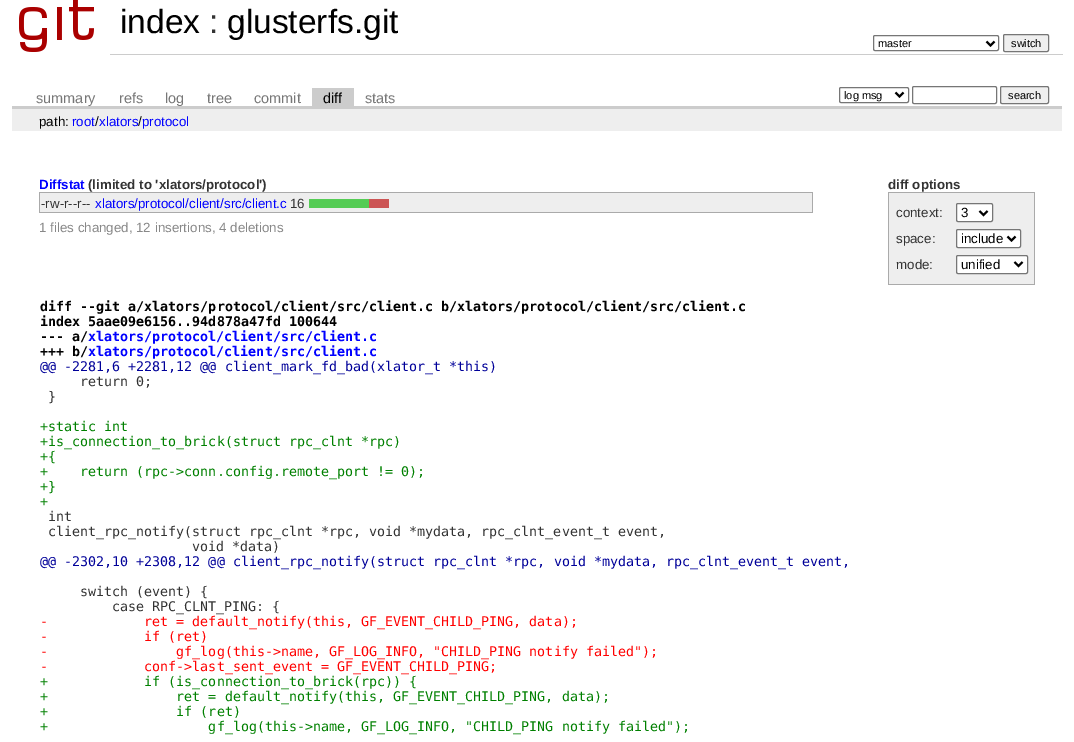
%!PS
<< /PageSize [1074 742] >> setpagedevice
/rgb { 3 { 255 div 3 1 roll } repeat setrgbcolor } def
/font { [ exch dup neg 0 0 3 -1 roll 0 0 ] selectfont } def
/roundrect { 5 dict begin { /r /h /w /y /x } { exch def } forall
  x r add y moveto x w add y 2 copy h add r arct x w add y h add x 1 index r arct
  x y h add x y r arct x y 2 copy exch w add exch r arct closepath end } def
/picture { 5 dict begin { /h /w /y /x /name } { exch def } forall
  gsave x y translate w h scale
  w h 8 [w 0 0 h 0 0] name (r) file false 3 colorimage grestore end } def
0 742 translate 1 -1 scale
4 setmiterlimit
255 255 255 rgb
0 0 1074 742 rectfill
(img/1.rgb) 19 0 75 52 picture
118 118 118 rgb
873.5 35.5 125 15 1.5 roundrect stroke
0 0 0 rgb
2 setlinewidth
986.5 41.5 moveto 990.5 45.5 lineto 994.5 41.5 lineto stroke
239 239 239 rgb
1003.5 34.5 45 17 1.5 roundrect gsave fill grestore
118 118 118 rgb
1 setlinewidth
stroke
[
  [110 54 953 1 204 204 204]
  [12 106 1050 3 204 204 204]
  [312 88 42 18 204 204 204]
] { aload pop rgb rectfill } forall
118 118 118 rgb
839.5 87.5 69 15 1.5 roundrect stroke
0 0 0 rgb
2 setlinewidth
895.5 92.5 moveto 899.5 96.5 lineto 903.5 92.5 lineto stroke
118 118 118 rgb
1 setlinewidth
912.5 86.5 84 17 1.5 roundrect stroke
239 239 239 rgb
1000.5 86.5 48 17 1.5 roundrect gsave fill grestore
118 118 118 rgb
stroke
[
  [12 109 1050 22 238 238 238]
  [889 193 145 91 238 238 238]
  [888 192 147 1 170 170 170]
  [1034 192 1 93 170 170 170]
  [888 284 147 1 170 170 170]
  [888 192 1 93 170 170 170]
] { aload pop rgb rectfill } forall
255 255 255 rgb
956.5 203.5 36 18 1.5 roundrect gsave fill grestore
118 118 118 rgb
stroke
0 0 0 rgb
2 setlinewidth
979.5 211 moveto 983.5 215 lineto 987.5 211 lineto stroke
255 255 255 rgb
956.5 229.5 64 18 1.5 roundrect gsave fill grestore
118 118 118 rgb
1 setlinewidth
stroke
0 0 0 rgb
2 setlinewidth
1007.5 236.5 moveto 1011.5 240.5 lineto 1015.5 236.5 lineto stroke
255 255 255 rgb
956.5 255.5 71 18 1.5 roundrect gsave fill grestore
118 118 118 rgb
1 setlinewidth
stroke
0 0 0 rgb
2 setlinewidth
1014.5 262 moveto 1018.5 266 lineto 1022.5 262 lineto stroke
[
  [40 193 772 19 238 238 238]
  [39 192 774 1 170 170 170]
  [812 192 1 21 170 170 170]
  [39 212 774 1 170 170 170]
  [39 192 1 21 170 170 170]
  [309 199 60 9 85 204 85]
  [369 199 20 9 204 85 85]
] { aload pop rgb rectfill } forall
/LiberationSans-Regular 33.5 font
0 0 0 rgb
120 33 moveto (index) show
51 51 51 rgb
209 33 moveto (:) show
0 0 0 rgb
227 33 moveto (glusterfs.git) show
/LiberationSans-Regular 11 font
878 47 moveto (master) show
1011 47 moveto (switch) show
/LiberationSans-Regular 14.5 font
119 119 119 rgb
[
  [(summary) 36 103]
  [(refs) 119 103]
  [(log) 165 103]
  [(tree) 207 103]
  [(commit) 254 103]
] { aload pop moveto show } forall
0 0 0 rgb
323 103 moveto (diff) show
119 119 119 rgb
365 103 moveto (stats) show
/LiberationSans-Regular 11 font
0 0 0 rgb
844 99 moveto (log msg) show
1008 99 moveto (search) show
/LiberationSans-Regular 13.33 font
39 126 moveto (path:) show
95 126 moveto (/) show
0 0 255 rgb
99 126 moveto (xlators protocol) show
72 126 moveto (root) show
0 0 0 rgb
138 126 moveto (/) show
/LiberationSans-Bold 13.33 font
0 0 255 rgb
39 189 moveto (Diffstat) show
51 51 51 rgb
88 189 moveto (\(limited to 'xlators/protocol'\)) show
888 189 moveto (diff options) show
/LiberationSans-Regular 13.33 font
896 217 moveto (context:) show
0 0 0 rgb
961 217 moveto (3) show
51 51 51 rgb
896 243 moveto (space:) show
0 0 0 rgb
961 243 moveto (include) show
51 51 51 rgb
896 269 moveto (mode:) show
0 0 0 rgb
961 269 moveto (unified) show
51 51 51 rgb
41 208 moveto (-rw-r--r--) show
0 0 255 rgb
95 208 moveto (xlators/protocol/client/src/client.c) show
51 51 51 rgb
290 208 moveto (16) show
136 136 136 rgb
39 232 moveto (1 files changed, 12 insertions, 4 deletions) show
/DejaVuSansMono-Bold 13.33 font
0 0 0 rgb
[
  [(diff --git a/xlators/protocol/client/src/client.c b/xlators/protocol/client/src/client.c) 40 311]
  [(index 5aae09e6156..94d878a47fd 100644) 40 326]
  [(--- a/) 40 341]
] { aload pop moveto show } forall
0 0 255 rgb
88 341 moveto (xlators/protocol/client/src/client.c) show
0 0 0 rgb
40 356 moveto (+++ b/) show
0 0 255 rgb
88 356 moveto (xlators/protocol/client/src/client.c) show
/DejaVuSansMono-Regular 13.33 font
0 0 153 rgb
40 371 moveto (@@ -2281,6 +2281,12 @@ client_mark_fd_bad\(xlator_t *this\)) show
51 51 51 rgb
80 386 moveto (return 0;) show
48 401 moveto (}) show
0 128 0 rgb
[
  [(+static int) 40 431]
  [(+is_connection_to_brick\(struct rpc_clnt *rpc\)) 40 446]
  [(+{) 40 461]
  [(+    return \(rpc->conn.config.remote_port != 0\);) 40 476]
  [(+}) 40 491]
  [(+) 40 506]
] { aload pop moveto show } forall
51 51 51 rgb
[
  [(int) 48 521]
  [(client_rpc_notify\(struct rpc_clnt *rpc, void *mydata, rpc_clnt_event_t event,) 48 536]
  [(void *data\)) 192 551]
] { aload pop moveto show } forall
0 0 153 rgb
40 566 moveto (@@ -2302,10 +2308,12 @@ client_rpc_notify\(struct rpc_clnt *rpc, void *mydata, rpc_clnt_event_t event,) show
51 51 51 rgb
80 596 moveto (switch \(event\) {) show
112 611 moveto (case RPC_CLNT_PING: {) show
255 0 0 rgb
[
  [(-            ret = default_notify\(this, GF_EVENT_CHILD_PING, data\);) 40 626]
  [(-            if \(ret\)) 40 641]
  [(-                gf_log\(this->name, GF_LOG_INFO, "CHILD_PING notify failed"\);) 40 656]
  [(-            conf->last_sent_event = GF_EVENT_CHILD_PING;) 40 671]
] { aload pop moveto show } forall
0 128 0 rgb
[
  [(+            if \(is_connection_to_brick\(rpc\)\) {) 40 686]
  [(+                ret = default_notify\(this, GF_EVENT_CHILD_PING, data\);) 40 701]
  [(+                if \(ret\)) 40 716]
  [(+                    gf_log\(this->name, GF_LOG_INFO, "CHILD_PING notify failed"\);) 40 731]
] { aload pop moveto show } forall
showpage
